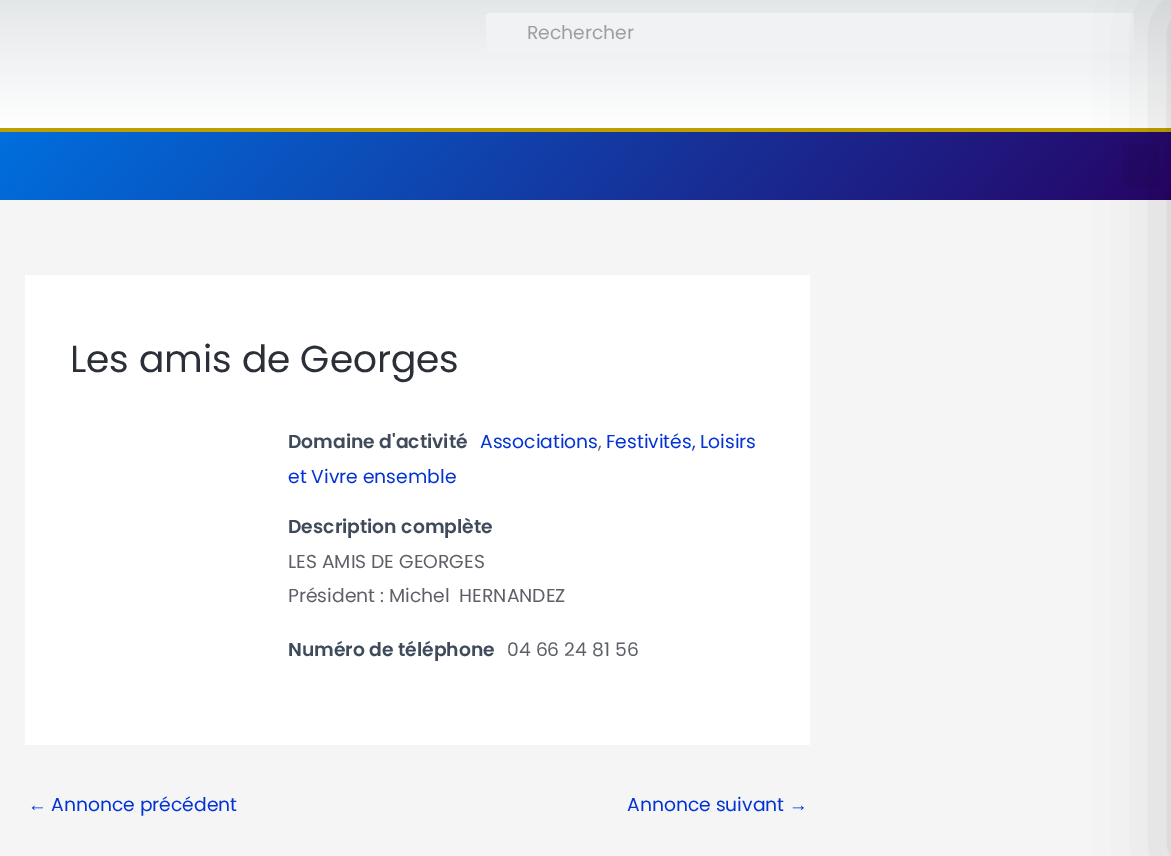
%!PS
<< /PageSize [1171 856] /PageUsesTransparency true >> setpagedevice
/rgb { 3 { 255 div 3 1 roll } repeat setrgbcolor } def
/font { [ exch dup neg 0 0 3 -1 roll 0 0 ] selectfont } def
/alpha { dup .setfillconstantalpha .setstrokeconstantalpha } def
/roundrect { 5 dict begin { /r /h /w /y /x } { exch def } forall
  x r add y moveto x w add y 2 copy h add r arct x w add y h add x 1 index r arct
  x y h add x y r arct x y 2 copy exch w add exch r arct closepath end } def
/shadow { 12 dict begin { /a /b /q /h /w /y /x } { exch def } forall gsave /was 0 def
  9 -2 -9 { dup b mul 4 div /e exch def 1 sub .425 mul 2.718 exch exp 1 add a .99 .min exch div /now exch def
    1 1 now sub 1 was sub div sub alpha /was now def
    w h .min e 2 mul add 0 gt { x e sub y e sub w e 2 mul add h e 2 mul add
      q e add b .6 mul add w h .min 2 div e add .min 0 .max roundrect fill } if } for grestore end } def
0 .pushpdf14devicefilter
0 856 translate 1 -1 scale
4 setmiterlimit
245 245 245 rgb
0 0 1171 856 rectfill
gsave 0 0 moveto 1171 0 lineto 1171 128 lineto 0 128 lineto closepath clip newpath
<< /ShadingType 2 /ColorSpace /DeviceRGB /Coords [586 0 586 128] /Extend [true true] /Function << /FunctionType 2 /Domain [0 1] /C0 [0.894 0.906 0.914] /C1 [1 1 1] /N 1 >> >> shfill grestore
241 242 243 rgb
486 13 648 40 4 roundrect fill
gsave 0 132 moveto 1171 132 lineto 1171 200 lineto 0 200 lineto closepath clip newpath
<< /ShadingType 2 /ColorSpace /DeviceRGB /Coords [225 -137 946 468] /Extend [true true] /Function << /FunctionType 2 /Domain [0 1] /C0 [0 0.435 0.867] /C1 [0.153 0.016 0.404] /N 1 >> >> shfill grestore
[
  [0 128 1171 4 191 159 0]
] { aload pop rgb rectfill } forall
0.05 alpha
[
  [1123 144 36 44 0 0 0]
] { aload pop rgb rectfill } forall
1 alpha
[
  [25 275 785 470 255 255 255]
] { aload pop rgb rectfill } forall
0 0 0 rgb
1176 13 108 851 0 37.5 0.2 shadow
/Poppins-Regular 18.75 font
158 158 158 rgb
527 39 moveto (Rechercher) show
/Poppins-Regular 37.5 font
43 47 56 rgb
70 372 moveto (Les amis de Georges) show
/Poppins-SemiBold 18.75 font
63 75 91 rgb
288 448 moveto (Domaine d'activité) show
/Poppins-Regular 18.75 font
4 51 213 rgb
480 448 moveto (Associations) show
93 97 103 rgb
598 448 moveto (,) show
4 51 213 rgb
606 448 moveto (Festivités, Loisirs) show
288 483 moveto (et Vivre ensemble) show
/Poppins-SemiBold 18.75 font
63 75 91 rgb
288 533 moveto (Description complète) show
/Poppins-Regular 18.75 font
93 97 103 rgb
288 568 moveto (LES AMIS DE GEORGES) show
288 602 moveto (Président : Michel  HERNANDEZ) show
/Poppins-SemiBold 18.75 font
63 75 91 rgb
288 656 moveto (Numéro de téléphone) show
/Poppins-Regular 18.75 font
93 97 103 rgb
507 656 moveto (04 66 24 81 56) show
/LiberationSans-Regular 18.75 font
4 51 213 rgb
28 811 moveto (←) show
/Poppins-Regular 18.75 font
51 811 moveto (Annonce précédent) show
627 811 moveto (Annonce suivant) show
/LiberationSans-Regular 18.75 font
789 811 moveto (→) show
.poppdf14devicefilter showpage
